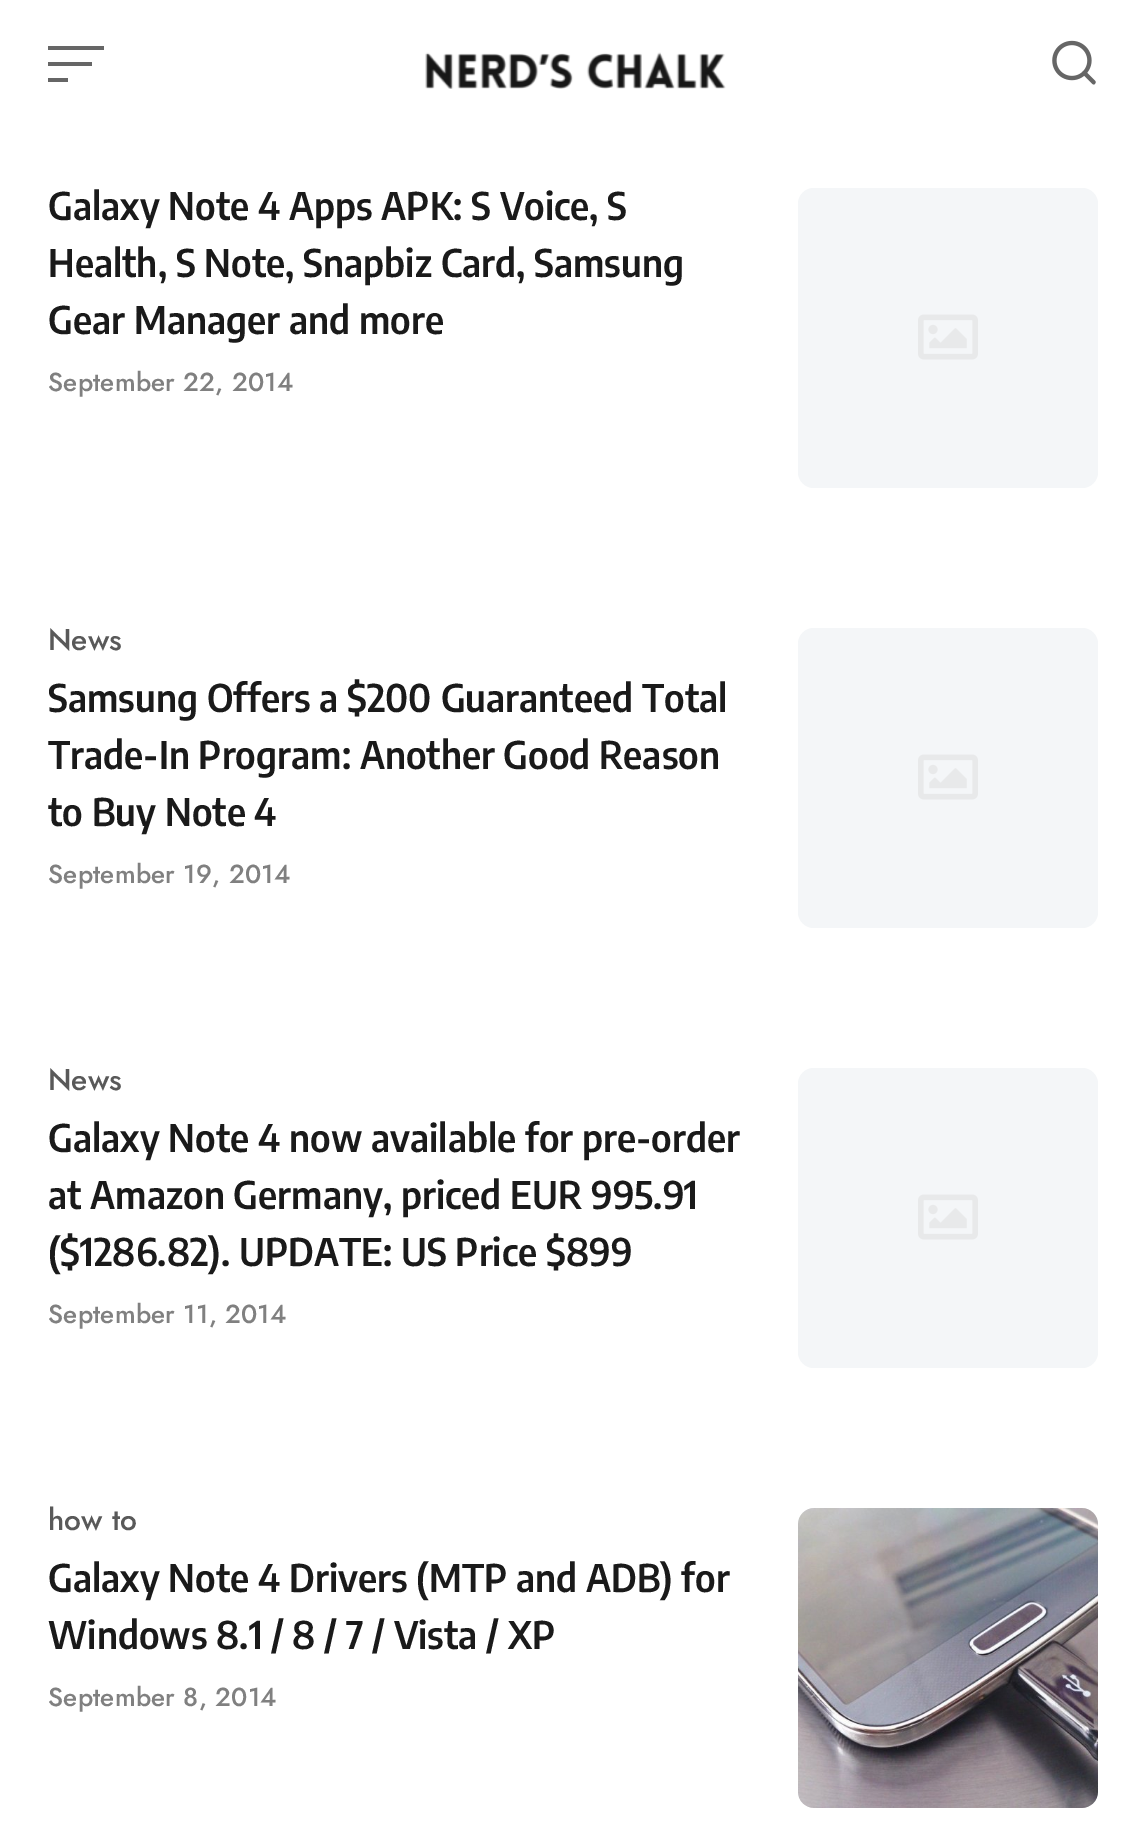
%!PS
<< /PageSize [1146 1822] >> setpagedevice
/rgb { 3 { 255 div 3 1 roll } repeat setrgbcolor } def
/font { [ exch dup neg 0 0 3 -1 roll 0 0 ] selectfont } def
/roundrect { 5 dict begin { /r /h /w /y /x } { exch def } forall
  x r add y moveto x w add y 2 copy h add r arct x w add y h add x 1 index r arct
  x y h add x y r arct x y 2 copy exch w add exch r arct closepath end } def
/picture { 5 dict begin { /h /w /y /x /name } { exch def } forall
  gsave x y translate w h scale
  w h 8 [w 0 0 h 0 0] name (r) file false 3 colorimage grestore end } def
0 1822 translate 1 -1 scale
4 setmiterlimit
255 255 255 rgb
0 0 1146 1822 rectfill
[
  [48 46 56 4 102 102 102]
  [48 62 44 4 102 102 102]
  [48 78 20 4 102 102 102]
] { aload pop rgb rectfill } forall
(img/1.rgb) 425 52 301 37 picture
(img/2.rgb) 1052 40 44 45 picture
244 246 248 rgb
798 188 300 300 16 roundrect fill
(img/3.rgb) 918 314 60 46 picture
798 628 300 300 16 roundrect fill
(img/3.rgb) 918 754 60 46 picture
798 1068 300 300 16 roundrect fill
(img/3.rgb) 918 1194 60 46 picture
798 1508 300 300 16 roundrect fill
(img/4.rgb) 798 1508 300 300 picture
/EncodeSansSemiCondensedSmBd-SemiBold 38 font
26 26 26 rgb
[
  [(Galaxy Note 4 Apps APK: S Voice, S) 48 220]
  [(Health, S Note, Snapbiz Card, Samsung) 48 277]
  [(Gear Manager and more) 48 334]
] { aload pop moveto show } forall
/Jost-Medium 26 font
128 128 128 rgb
48 391 moveto 0.25 0 (September 22, 2014) ashow
/Jost-Medium 30 font
89 89 89 rgb
48 650 moveto (News) show
/EncodeSansSemiCondensedSmBd-SemiBold 38 font
26 26 26 rgb
[
  [(Samsung Offers a $200 Guaranteed Total) 48 712]
  [(Trade-In Program: Another Good Reason) 48 769]
  [(to Buy Note 4) 48 826]
] { aload pop moveto show } forall
/Jost-Medium 26 font
128 128 128 rgb
48 883 moveto 0.25 0 (September 19, 2014) ashow
/Jost-Medium 30 font
89 89 89 rgb
48 1090 moveto (News) show
/EncodeSansSemiCondensedSmBd-SemiBold 38 font
26 26 26 rgb
[
  [(Galaxy Note 4 now available for pre-order) 48 1152]
  [(at Amazon Germany, priced EUR 995.91) 48 1209]
  [(\($1286.82\). UPDATE: US Price $899) 48 1266]
] { aload pop moveto show } forall
/Jost-Medium 26 font
128 128 128 rgb
48 1323 moveto 0.25 0 (September 11, 2014) ashow
/Jost-Medium 30 font
89 89 89 rgb
48 1530 moveto (how to) show
/EncodeSansSemiCondensedSmBd-SemiBold 38 font
26 26 26 rgb
48 1592 moveto (Galaxy Note 4 Drivers \(MTP and ADB\) for) show
48 1649 moveto (Windows 8.1 / 8 / 7 / Vista / XP) show
/Jost-Medium 26 font
128 128 128 rgb
48 1706 moveto 0.25 0 (September 8, 2014) ashow
showpage
